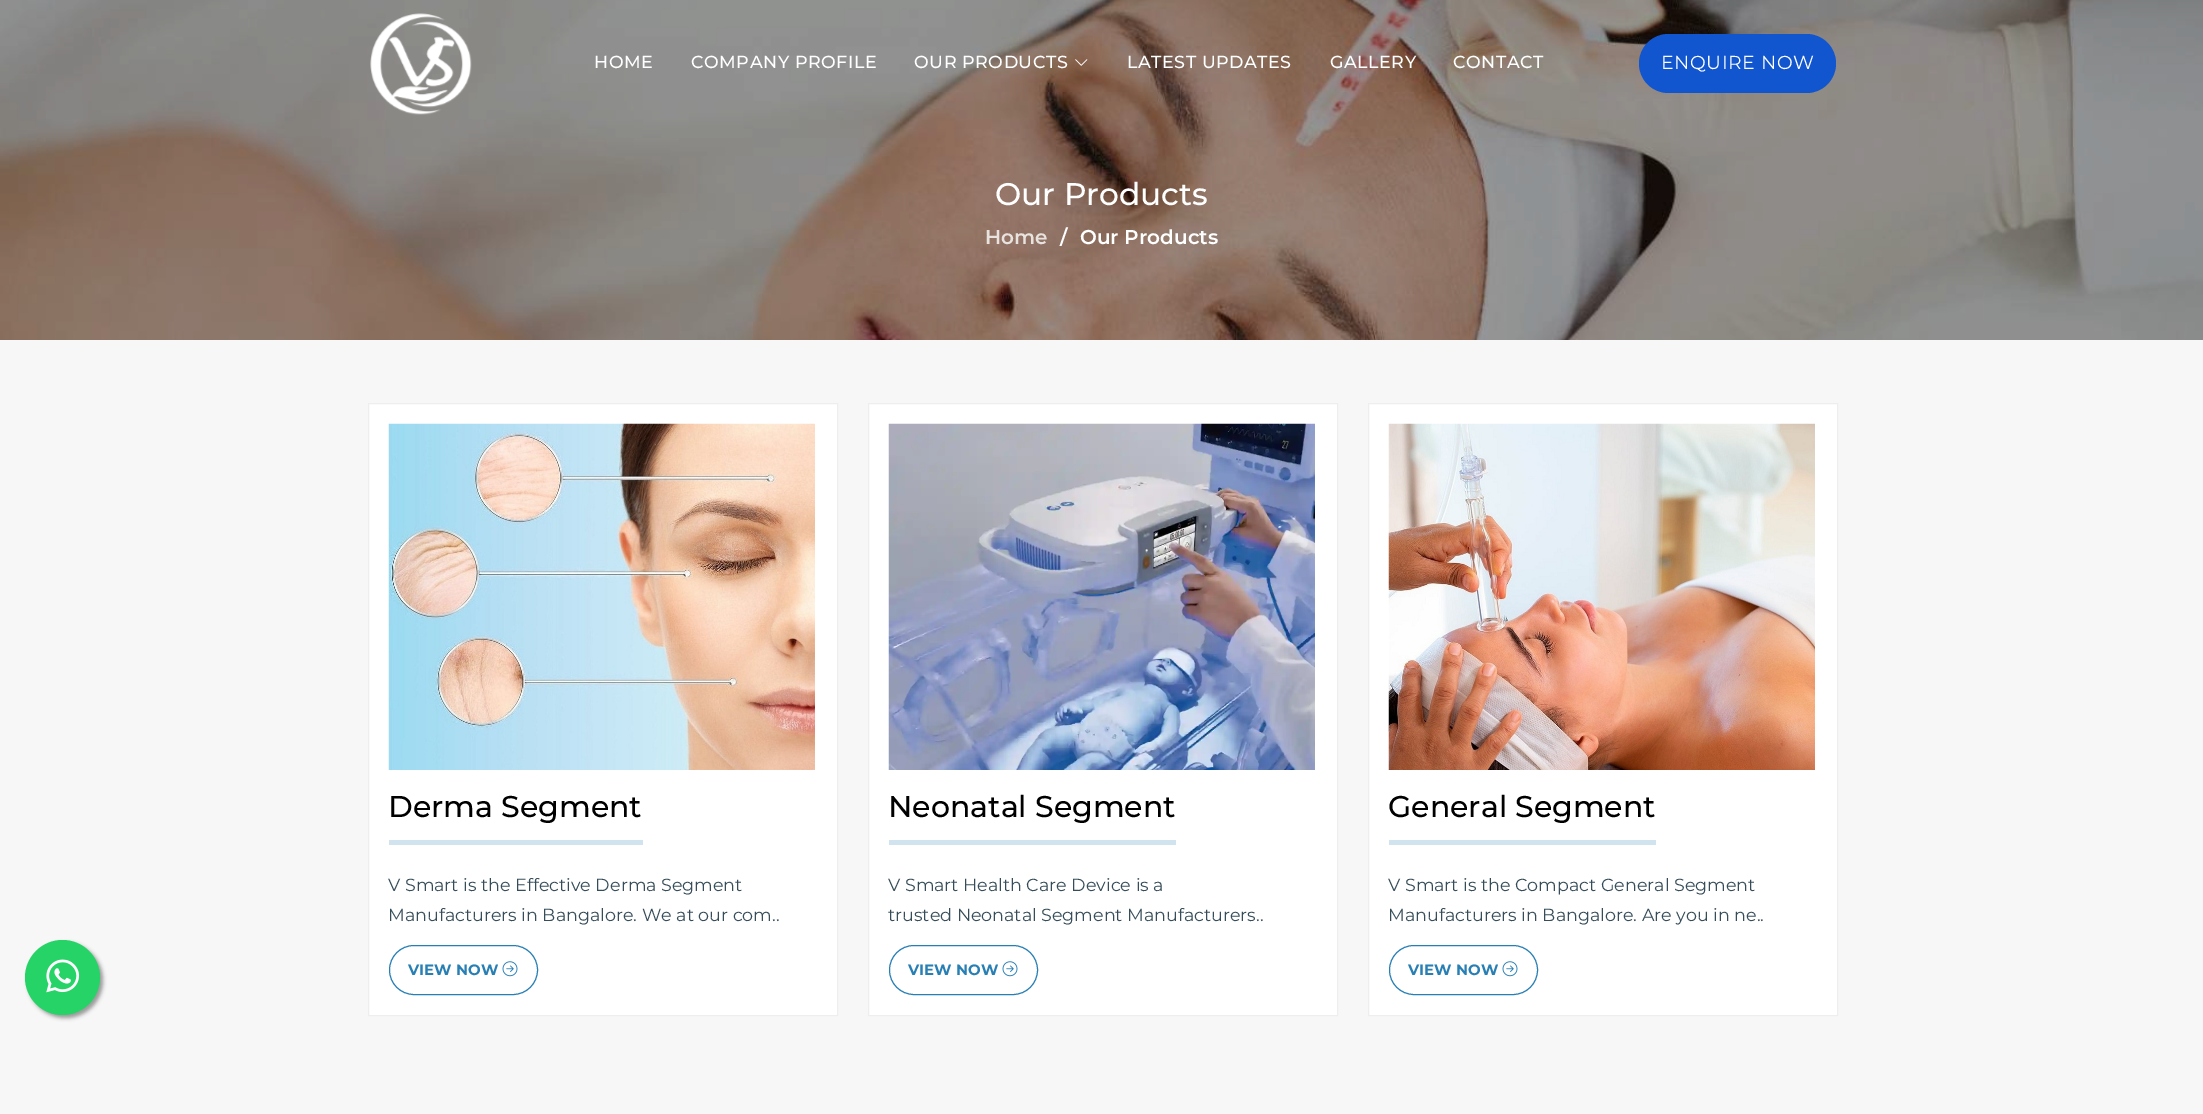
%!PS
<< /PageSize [2203 1114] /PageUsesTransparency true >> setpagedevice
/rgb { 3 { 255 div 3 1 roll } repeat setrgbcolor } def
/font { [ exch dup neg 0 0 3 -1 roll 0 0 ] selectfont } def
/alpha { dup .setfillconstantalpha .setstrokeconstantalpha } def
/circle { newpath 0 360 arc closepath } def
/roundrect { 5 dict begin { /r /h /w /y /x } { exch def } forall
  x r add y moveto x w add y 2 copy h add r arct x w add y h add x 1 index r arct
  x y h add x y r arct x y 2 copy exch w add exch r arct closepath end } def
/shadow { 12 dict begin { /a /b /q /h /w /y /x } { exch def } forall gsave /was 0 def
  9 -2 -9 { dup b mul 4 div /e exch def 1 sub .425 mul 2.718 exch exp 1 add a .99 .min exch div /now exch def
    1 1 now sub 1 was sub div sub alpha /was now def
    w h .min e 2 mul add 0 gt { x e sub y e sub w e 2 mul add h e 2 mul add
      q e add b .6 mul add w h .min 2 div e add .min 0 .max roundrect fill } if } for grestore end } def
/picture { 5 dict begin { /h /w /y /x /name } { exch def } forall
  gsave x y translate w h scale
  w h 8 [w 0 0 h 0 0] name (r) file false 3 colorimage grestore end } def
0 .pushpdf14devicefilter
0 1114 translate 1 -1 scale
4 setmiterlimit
247 247 247 rgb
0 0 2203 1114 rectfill
(img/4.rgb) 0 0 2203 340 picture
(img/1.rgb) 370 13 102 102 picture
(img/2.rgb) 1075 59 13 7 picture
17 86 207 rgb
1639 34 197 59 29.5 roundrect fill
153 153 153 rgb
28 943 75 75 37.5 2 1 shadow
37 211 102 rgb
62.5 977.5 37.5 circle fill
(img/3.rgb) 46 959 34 34 picture
255 255 255 rgb
368.5 403.5 moveto 837.5 403.5 lineto 837.5 1015.5 lineto 368.5 1015.5 lineto closepath gsave fill grestore
238 238 238 rgb
stroke
(img/5.rgb) 388 423 427 347 picture
208 227 239 rgb
389 840 254 5 rectfill
40 127 180 rgb
389.5 945.5 148 49 24.5 roundrect stroke
(img/6.rgb) 502 961 16 16 picture
255 255 255 rgb
868.5 403.5 moveto 1337.5 403.5 lineto 1337.5 1015.5 lineto 868.5 1015.5 lineto closepath gsave fill grestore
238 238 238 rgb
stroke
(img/7.rgb) 888 423 427 347 picture
208 227 239 rgb
889 840 287 5 rectfill
40 127 180 rgb
889.5 945.5 148 49 24.5 roundrect stroke
(img/6.rgb) 1002 961 16 16 picture
255 255 255 rgb
1368.5 403.5 moveto 1837.5 403.5 lineto 1837.5 1015.5 lineto 1368.5 1015.5 lineto closepath gsave fill grestore
238 238 238 rgb
stroke
(img/8.rgb) 1388 423 427 347 picture
208 227 239 rgb
1389 840 267 5 rectfill
40 127 180 rgb
1389.5 945.5 148 49 24.5 roundrect stroke
(img/6.rgb) 1502 961 16 16 picture
/Montserrat-Medium 17.5 font
255 255 255 rgb
594 68 moveto 0.5 0 (HOME) ashow
691 68 moveto 0.5 0 (COMPANY PROFILE) ashow
914 68 moveto 0.5 0 (OUR PRODUCTS) ashow
1127 68 moveto 0.5 0 (LATEST UPDATES) ashow
1330 68 moveto 0.5 0 (GALLERY) ashow
1453 68 moveto 0.5 0 (CONTACT) ashow
/Montserrat-Regular 18.75 font
1661 69 moveto 0.6 0 (ENQUIRE NOW) ashow
/Montserrat-Medium 31.25 font
995 205 moveto (Our Products) show
/Montserrat-SemiBold 20 font
233 227 224 rgb
985 244 moveto (Home) show
255 255 255 rgb
1060 244 moveto (/) show
1080 244 moveto (Our Products) show
/Montserrat-Medium 30 font
0 0 0 rgb
388 817 moveto (Derma Segment) show
/Montserrat-Regular 17.5 font
54 77 89 rgb
388 891 moveto (V Smart is the Effective Derma Segment) show
388 921 moveto (Manufacturers in Bangalore. We at our com..) show
/Montserrat-Bold 15 font
40 127 180 rgb
408 975 moveto (VIEW NOW) show
/Montserrat-Medium 30 font
0 0 0 rgb
888 817 moveto (Neonatal Segment) show
/Montserrat-Regular 17.5 font
54 77 89 rgb
888 891 moveto (V Smart Health Care Device is a) show
888 921 moveto (trusted Neonatal Segment Manufacturers..) show
/Montserrat-Bold 15 font
40 127 180 rgb
908 975 moveto (VIEW NOW) show
/Montserrat-Medium 30 font
0 0 0 rgb
1388 817 moveto (General Segment) show
/Montserrat-Regular 17.5 font
54 77 89 rgb
1388 891 moveto (V Smart is the Compact General Segment) show
1388 921 moveto (Manufacturers in Bangalore. Are you in ne..) show
/Montserrat-Bold 15 font
40 127 180 rgb
1408 975 moveto (VIEW NOW) show
.poppdf14devicefilter showpage
